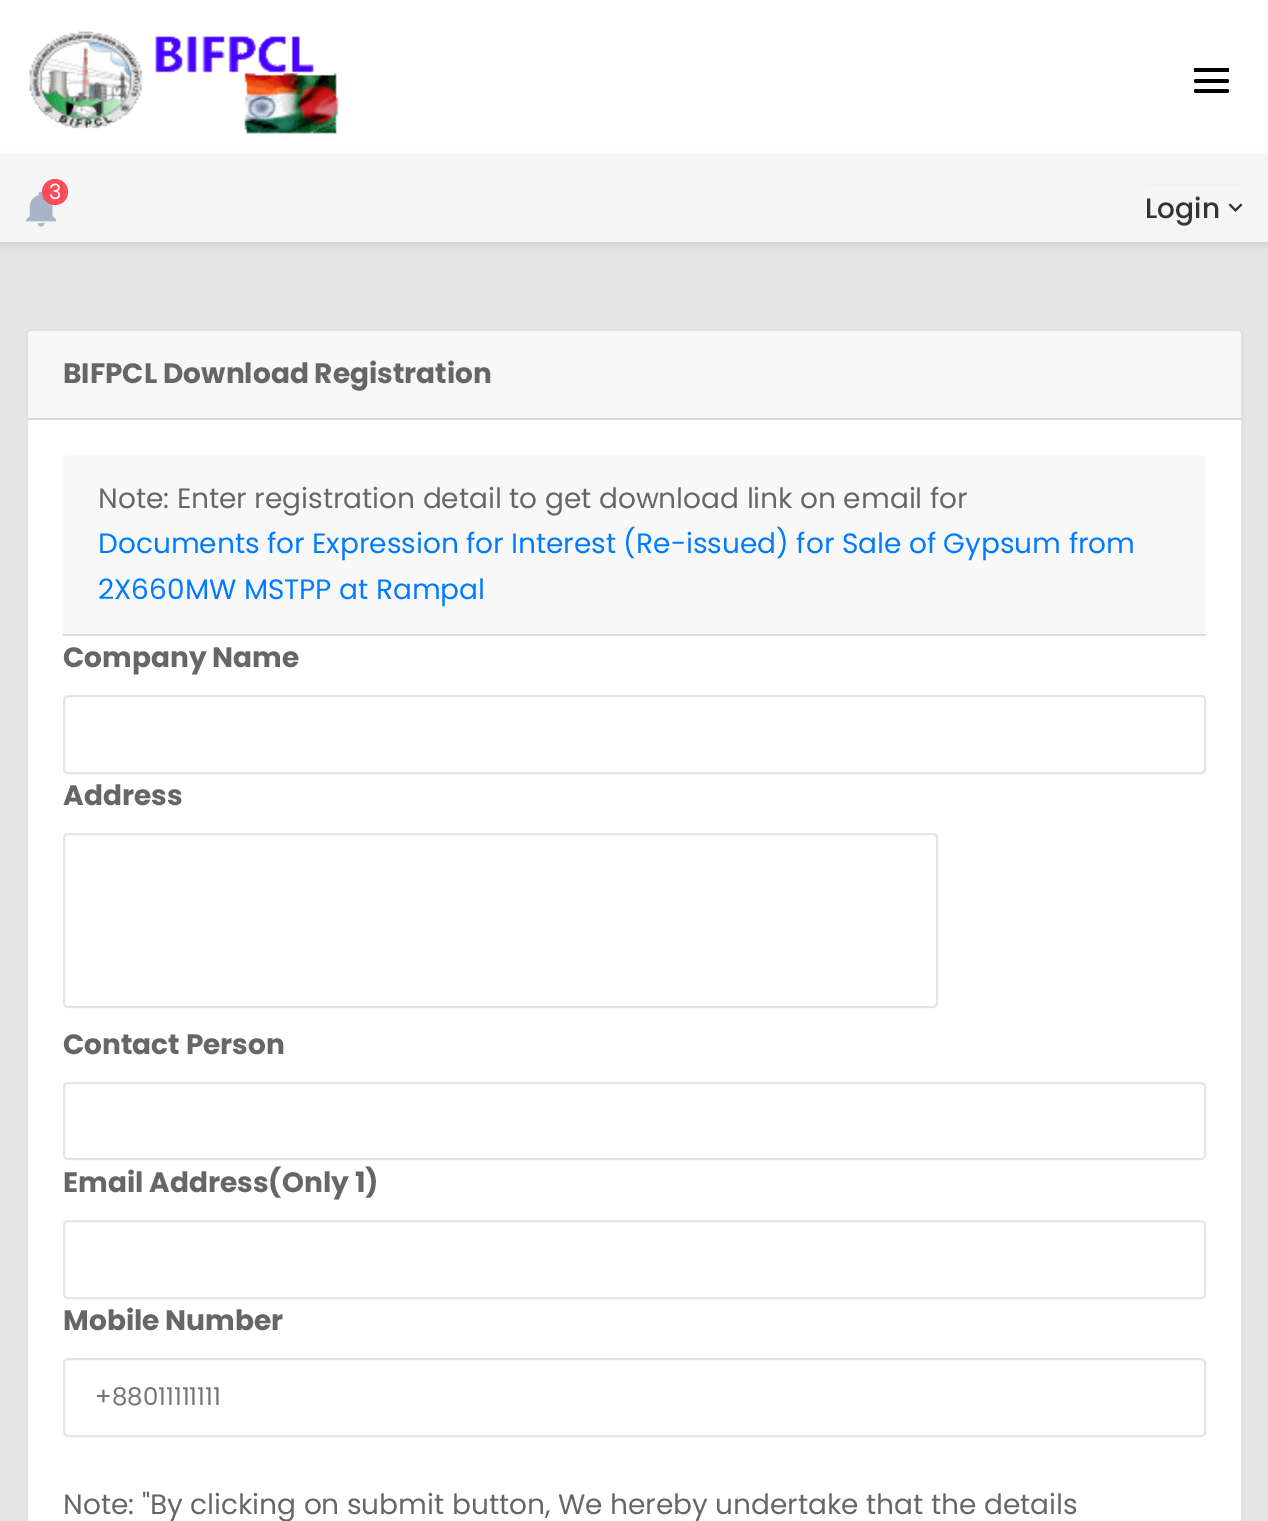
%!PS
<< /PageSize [1268 1521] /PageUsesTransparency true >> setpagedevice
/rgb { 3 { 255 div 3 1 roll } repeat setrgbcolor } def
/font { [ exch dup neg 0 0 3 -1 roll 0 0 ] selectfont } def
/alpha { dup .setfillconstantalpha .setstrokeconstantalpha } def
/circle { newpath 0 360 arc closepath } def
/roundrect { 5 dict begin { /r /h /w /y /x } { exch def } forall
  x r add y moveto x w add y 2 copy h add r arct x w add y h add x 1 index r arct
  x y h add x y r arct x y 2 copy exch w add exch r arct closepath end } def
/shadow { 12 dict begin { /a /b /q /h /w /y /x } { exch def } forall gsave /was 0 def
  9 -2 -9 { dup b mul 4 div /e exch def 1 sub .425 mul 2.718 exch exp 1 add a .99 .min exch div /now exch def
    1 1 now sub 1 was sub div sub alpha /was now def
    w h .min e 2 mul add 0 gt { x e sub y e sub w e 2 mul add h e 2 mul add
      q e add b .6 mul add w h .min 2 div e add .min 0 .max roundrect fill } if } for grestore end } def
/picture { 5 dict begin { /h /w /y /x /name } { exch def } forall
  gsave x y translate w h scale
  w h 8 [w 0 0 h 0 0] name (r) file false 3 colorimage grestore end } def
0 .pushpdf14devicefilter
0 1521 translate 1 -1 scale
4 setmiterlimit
255 255 255 rgb
0 0 1268 1521 rectfill
(img/1.rgb) 29 31 310 103 picture
0 0 0 rgb
1194 68 35 4 rectfill
1194 79 35 4 2 roundrect fill
1194 89 35 4 2 roundrect fill
229 229 229 rgb
0 242 1268 1279 rectfill
0 0 0 rgb
0 158 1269 87 0 4.5 0.1 shadow
245 245 245 rgb
0 154 1268 88 rectfill
(img/2.rgb) 26 191 30 36 picture
255 75 90 rgb
55 192 13 circle fill
242 242 242 rgb
1145 184 98 2 rectfill
(img/3.rgb) 1228 203 15 9 picture
255 255 255 rgb
31 329 moveto 1238 329 lineto 1241 329 1243 331 1243 334 curveto 1243 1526 lineto 26 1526 lineto 26 334 lineto 26 331 28 329 31 329 curveto closepath fill
224 224 224 rgb
63 635 1143 1 rectfill
0.12 alpha
0 0 0 rgb
2 setlinewidth
27 330 1215 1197 4 roundrect stroke
1 alpha
248 248 248 rgb
33 331 moveto 1236 331 lineto 1239 331 1241 333 1241 336 curveto 1241 420 lineto 28 420 lineto 28 336 lineto 28 333 30 331 33 331 curveto closepath fill
217 217 217 rgb
28 418 1213 2 rectfill
248 248 248 rgb
68 455 moveto 1201 455 lineto 1204 455 1206 457 1206 460 curveto 1206 635 lineto 63 635 lineto 63 460 lineto 63 457 65 455 68 455 curveto closepath fill
218 218 218 rgb
63 634 1143 1 rectfill
229 229 229 rgb
64 696 1141 77 4 roundrect stroke
64 834 873 173 4 roundrect stroke
64 1083 1141 76 4 roundrect stroke
64 1221 1141 77 4 roundrect stroke
64 1359 1141 77 4 roundrect stroke
/Poppins-Regular 21 font
255 255 255 rgb
49 199 moveto (3) show
/Poppins-Medium 28 font
51 51 51 rgb
1145 218 moveto (Login) show
/Poppins-Bold 28 font
102 102 102 rgb
63 383 moveto (BIFPCL Download Registration) show
/Poppins-Regular 28 font
98 508 moveto (Note: Enter registration detail to get download link on email for) show
0 123 255 rgb
98 553 moveto (Documents for Expression for Interest \(Re-issued\) for Sale of Gypsum from) show
98 599 moveto (2X660MW MSTPP at Rampal) show
/Poppins-Bold 28 font
102 102 102 rgb
[
  [(Company Name) 63 667]
  [(Address) 63 805]
  [(Contact Person) 63 1054]
  [(Email Address\(Only 1\)) 63 1192]
  [(Mobile Number) 63 1330]
] { aload pop moveto show } forall
/Poppins-Regular 24.5 font
117 117 117 rgb
95 1405 moveto (+88011111111) show
/Poppins-Regular 28 font
102 102 102 rgb
63 1514 moveto (Note: "By clicking on submit button, We hereby undertake that the details) show
.poppdf14devicefilter showpage
